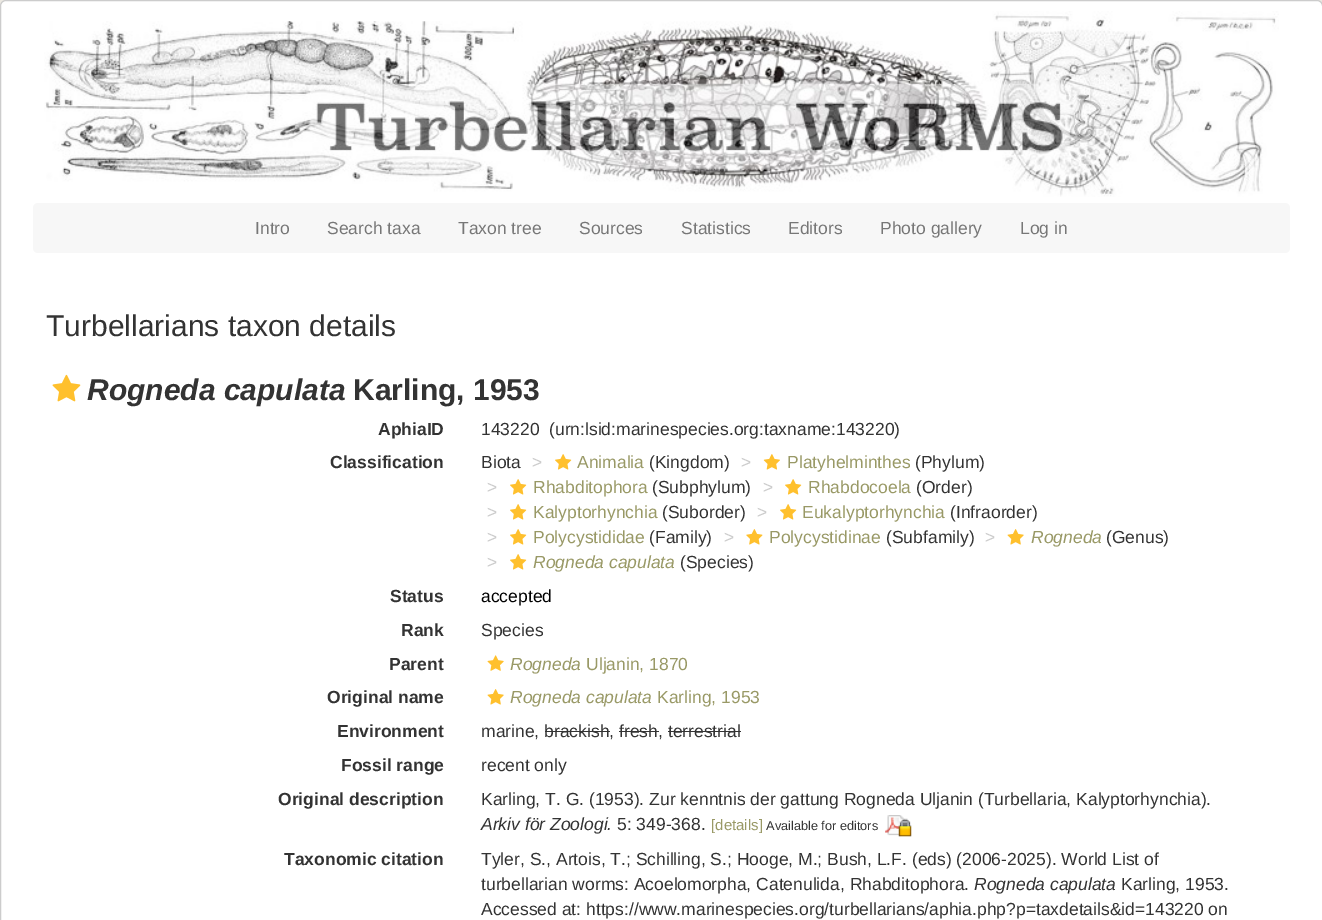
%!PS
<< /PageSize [1322 920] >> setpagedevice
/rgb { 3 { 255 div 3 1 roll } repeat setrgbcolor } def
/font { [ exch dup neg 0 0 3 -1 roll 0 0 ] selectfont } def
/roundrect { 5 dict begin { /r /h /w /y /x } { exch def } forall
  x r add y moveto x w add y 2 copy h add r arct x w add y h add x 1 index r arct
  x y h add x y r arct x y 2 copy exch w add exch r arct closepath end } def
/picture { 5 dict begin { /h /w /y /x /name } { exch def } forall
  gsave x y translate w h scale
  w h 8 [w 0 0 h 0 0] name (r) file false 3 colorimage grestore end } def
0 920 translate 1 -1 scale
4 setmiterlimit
236 233 226 rgb
0 0 1322 920 rectfill
255 255 255 rgb
0.5 0.5 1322 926 5.5 roundrect gsave fill grestore
204 204 204 rgb
stroke
(img/1.rgb) 44 11 1235 186 picture
247 247 247 rgb
33 203 1257 50 5 roundrect fill
(img/2.rgb) 52 374 29 28 picture
(img/3.rgb) 555 454 17 16 picture
(img/4.rgb) 763 454 17 16 picture
(img/3.rgb) 510 479 17 16 picture
(img/3.rgb) 785 479 17 16 picture
(img/3.rgb) 510 504 17 16 picture
(img/3.rgb) 780 504 17 16 picture
(img/3.rgb) 510 529 17 16 picture
(img/5.rgb) 746 529 17 16 picture
(img/6.rgb) 1007 529 17 16 picture
(img/3.rgb) 510 554 17 16 picture
(img/7.rgb) 487 655 17 16 picture
(img/6.rgb) 487 689 17 16 picture
[
  [545 731 65 1 51 51 51]
  [619 731 40 1 51 51 51]
  [668 731 73 1 51 51 51]
] { aload pop rgb rectfill } forall
(img/8.rgb) 885 815 27 22 picture
/LiberationSans-Regular 17.5 font
119 119 119 rgb
[
  [(Intro) 255 234]
  [(Search taxa) 327 234]
  [(Taxon tree) 458 234]
  [(Sources) 579 234]
  [(Statistics) 681 234]
  [(Editors) 788 234]
  [(Photo gallery) 880 234]
  [(Log in) 1020 234]
] { aload pop moveto show } forall
/LiberationSans-Regular 30 font
51 51 51 rgb
46 336 moveto (Turbellarians taxon details) show
/LiberationSans-BoldItalic 30 font
87 400 moveto (Rogneda capulata) show
/LiberationSans-Bold 30 font
353 400 moveto (Karling, 1953) show
/LiberationSans-Bold 17.5 font
378 435 moveto (AphiaID) show
/LiberationSans-Regular 17.5 font
481 435 moveto (143220) show
549 435 moveto (\(urn:lsid:marinespecies.org:taxname:143220\)) show
/LiberationSans-Bold 17.5 font
330 468 moveto (Classification) show
/LiberationSans-Regular 17.5 font
481 468 moveto (Biota) show
204 204 204 rgb
532 468 moveto (>) show
153 153 102 rgb
577 468 moveto (Animalia) show
51 51 51 rgb
649 468 moveto (\(Kingdom\)) show
204 204 204 rgb
741 468 moveto (>) show
153 153 102 rgb
787 468 moveto (Platyhelminthes) show
51 51 51 rgb
915 468 moveto (\(Phylum\)) show
204 204 204 rgb
487 493 moveto (>) show
153 153 102 rgb
533 493 moveto (Rhabditophora) show
51 51 51 rgb
652 493 moveto (\(Subphylum\)) show
204 204 204 rgb
763 493 moveto (>) show
153 153 102 rgb
808 493 moveto (Rhabdocoela) show
51 51 51 rgb
916 493 moveto (\(Order\)) show
204 204 204 rgb
487 518 moveto (>) show
153 153 102 rgb
533 518 moveto (Kalyptorhynchia) show
51 51 51 rgb
662 518 moveto (\(Suborder\)) show
204 204 204 rgb
757 518 moveto (>) show
153 153 102 rgb
802 518 moveto (Eukalyptorhynchia) show
51 51 51 rgb
950 518 moveto (\(Infraorder\)) show
204 204 204 rgb
487 543 moveto (>) show
153 153 102 rgb
533 543 moveto (Polycystididae) show
51 51 51 rgb
649 543 moveto (\(Family\)) show
204 204 204 rgb
724 543 moveto (>) show
153 153 102 rgb
769 543 moveto (Polycystidinae) show
51 51 51 rgb
886 543 moveto (\(Subfamily\)) show
204 204 204 rgb
985 543 moveto (>) show
/LiberationSans-Italic 17.5 font
153 153 102 rgb
1031 543 moveto (Rogneda) show
/LiberationSans-Regular 17.5 font
51 51 51 rgb
1106 543 moveto (\(Genus\)) show
204 204 204 rgb
487 568 moveto (>) show
/LiberationSans-Italic 17.5 font
153 153 102 rgb
533 568 moveto (Rogneda capulata) show
/LiberationSans-Regular 17.5 font
51 51 51 rgb
680 568 moveto (\(Species\)) show
/LiberationSans-Bold 17.5 font
390 602 moveto (Status) show
/LiberationSans-Regular 17.5 font
0 0 0 rgb
481 602 moveto (accepted) show
/LiberationSans-Bold 17.5 font
51 51 51 rgb
401 636 moveto (Rank) show
/LiberationSans-Regular 17.5 font
481 636 moveto (Species) show
/LiberationSans-Bold 17.5 font
389 670 moveto (Parent) show
/LiberationSans-Italic 17.5 font
153 153 102 rgb
510 670 moveto (Rogneda) show
/LiberationSans-Regular 17.5 font
586 670 moveto (Uljanin, 1870) show
/LiberationSans-Bold 17.5 font
51 51 51 rgb
327 703 moveto (Original name) show
/LiberationSans-Italic 17.5 font
153 153 102 rgb
510 703 moveto (Rogneda capulata) show
/LiberationSans-Regular 17.5 font
657 703 moveto (Karling, 1953) show
/LiberationSans-Bold 17.5 font
51 51 51 rgb
337 737 moveto (Environment) show
/LiberationSans-Regular 17.5 font
481 737 moveto (marine, brackish, fresh, terrestrial) show
/LiberationSans-Bold 17.5 font
341 771 moveto (Fossil range) show
/LiberationSans-Regular 17.5 font
481 771 moveto (recent only) show
/LiberationSans-Bold 17.5 font
278 805 moveto (Original description) show
/LiberationSans-Regular 17.5 font
481 805 moveto (Karling, T. G. \(1953\). Zur kenntnis der gattung Rogneda Uljanin \(Turbellaria, Kalyptorhynchia\).) show
/LiberationSans-Italic 17.5 font
481 830 moveto (Arkiv för Zoologi.) show
/LiberationSans-Regular 17.5 font
617 830 moveto (5: 349-368.) show
/LiberationSans-Regular 15 font
153 153 102 rgb
711 830 moveto ([details]) show
/LiberationSans-Regular 12.75 font
51 51 51 rgb
766 830 moveto (Available for editors) show
/LiberationSans-Bold 17.5 font
284 865 moveto (Taxonomic citation) show
/LiberationSans-Regular 17.5 font
481 865 moveto (Tyler, S., Artois, T.; Schilling, S.; Hooge, M.; Bush, L.F. \(eds\) \(2006-2025\). World List of) show
481 890 moveto (turbellarian worms: Acoelomorpha, Catenulida, Rhabditophora.) show
/LiberationSans-Italic 17.5 font
974 890 moveto (Rogneda capulata) show
/LiberationSans-Regular 17.5 font
1121 890 moveto (Karling, 1953.) show
481 915 moveto (Accessed at: https://www.marinespecies.org/turbellarians/aphia.php?p=taxdetails&id=143220 on) show
showpage
